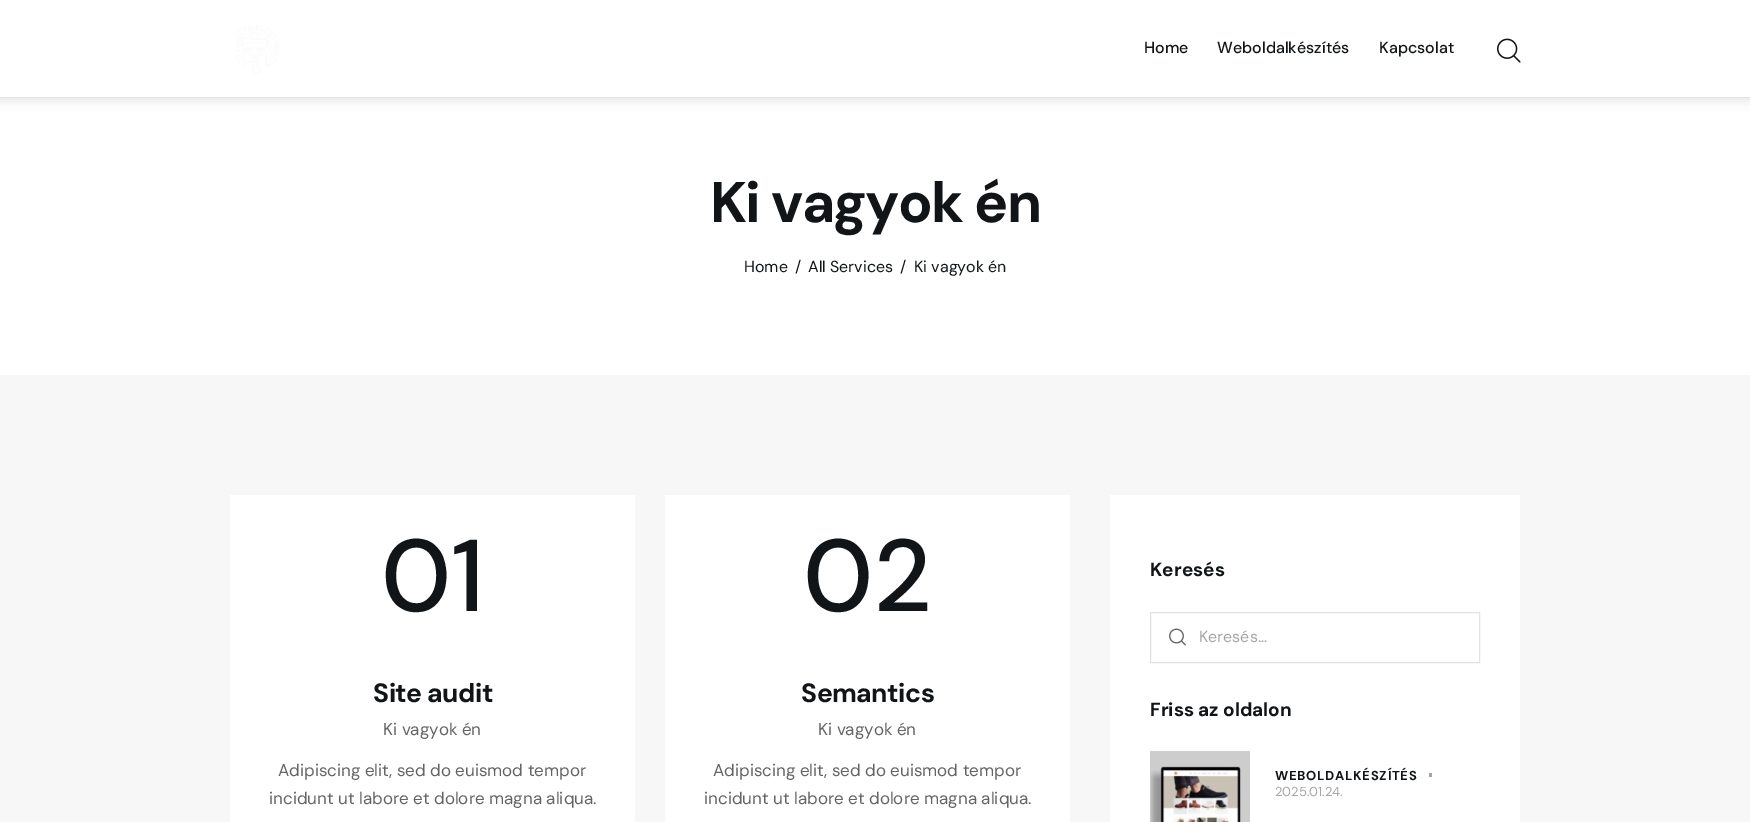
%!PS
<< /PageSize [1750 822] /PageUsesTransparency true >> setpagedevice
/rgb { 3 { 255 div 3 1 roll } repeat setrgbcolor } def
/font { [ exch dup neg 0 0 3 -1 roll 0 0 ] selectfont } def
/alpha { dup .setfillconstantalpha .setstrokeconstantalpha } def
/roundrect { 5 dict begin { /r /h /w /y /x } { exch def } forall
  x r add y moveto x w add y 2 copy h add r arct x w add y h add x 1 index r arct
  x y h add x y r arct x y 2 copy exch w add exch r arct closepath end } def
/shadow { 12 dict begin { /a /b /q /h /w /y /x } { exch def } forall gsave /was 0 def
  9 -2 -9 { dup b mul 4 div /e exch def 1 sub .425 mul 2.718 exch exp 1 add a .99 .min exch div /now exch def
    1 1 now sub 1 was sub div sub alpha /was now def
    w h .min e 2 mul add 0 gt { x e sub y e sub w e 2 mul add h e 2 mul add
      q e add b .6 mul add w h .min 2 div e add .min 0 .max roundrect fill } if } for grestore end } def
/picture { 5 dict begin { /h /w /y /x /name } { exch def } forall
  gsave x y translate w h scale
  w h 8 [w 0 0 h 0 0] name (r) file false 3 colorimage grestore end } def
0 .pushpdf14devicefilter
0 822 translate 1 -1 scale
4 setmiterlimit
247 247 247 rgb
0 0 1750 822 rectfill
255 255 255 rgb
0 98 1750 277 rectfill
0 0 0 rgb
-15 3 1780 98 0 5 0.1 shadow
255 255 255 rgb
0 0 1750 97 rectfill
(img/1.rgb) 236 25 43 49 picture
(img/2.rgb) 1497 38 24 25 picture
[
  [230 495 405 327 255 255 255]
  [665 495 405 327 255 255 255]
  [1110 495 410 327 255 255 255]
] { aload pop rgb rectfill } forall
226 226 226 rgb
1150.5 612.5 329 50 rectstroke
(img/3.rgb) 1169 628 17 18 picture
(img/4.rgb) 1150 751 100 71 picture
165 165 165 rgb
1429 773 3 4 rectfill
/DMSans-Medium 16 font
17 21 23 rgb
[
  [(Home) 1144 53]
  [(Weboldalkészítés) 1217 53]
  [(Kapcsolat) 1379 53]
] { aload pop moveto show } forall
/DMSans-Bold 57 font
710 222 moveto -1.75 0 (Ki vagyok én) ashow
/DMSans-Regular 16 font
[
  [(Home) 744 272]
  [(/) 795 272]
  [(All Services) 808 272]
  [(/) 900 272]
  [(Ki vagyok én) 914 272]
] { aload pop moveto show } forall
/DMSans-Medium 102 font
381 611 moveto (01) show
/DMSans-Bold 26.5 font
373 702 moveto -0.5 0 (Site audit) ashow
/DMSans-Regular 17 font
100 100 100 rgb
[
  [(Ki vagyok én) 383 735]
  [(Adipiscing elit, sed do euismod tempor) 278 776]
  [(incidunt ut labore et dolore magna aliqua.) 269 804]
] { aload pop moveto show } forall
/DMSans-Medium 102 font
17 21 23 rgb
803 611 moveto (02) show
/DMSans-Bold 26.5 font
801 702 moveto -0.5 0 (Semantics) ashow
/DMSans-Regular 17 font
100 100 100 rgb
[
  [(Ki vagyok én) 818 735]
  [(Adipiscing elit, sed do euismod tempor) 713 776]
  [(incidunt ut labore et dolore magna aliqua.) 704 804]
] { aload pop moveto show } forall
/DMSans-Bold 19 font
17 21 23 rgb
1150 576 moveto (Keresés) show
/DMSans-Regular 16 font
165 165 165 rgb
1199 642 moveto (Keresés…) show
/DMSans-Bold 19 font
17 21 23 rgb
1150 716 moveto (Friss az oldalon) show
/DMSans-Bold 13 font
1275 780 moveto 0.75 0 (WEBOLDALKÉSZÍTÉS) ashow
/DMSans-Regular 13 font
165 165 165 rgb
1275 796 moveto (2025.01.24.) show
.poppdf14devicefilter showpage
